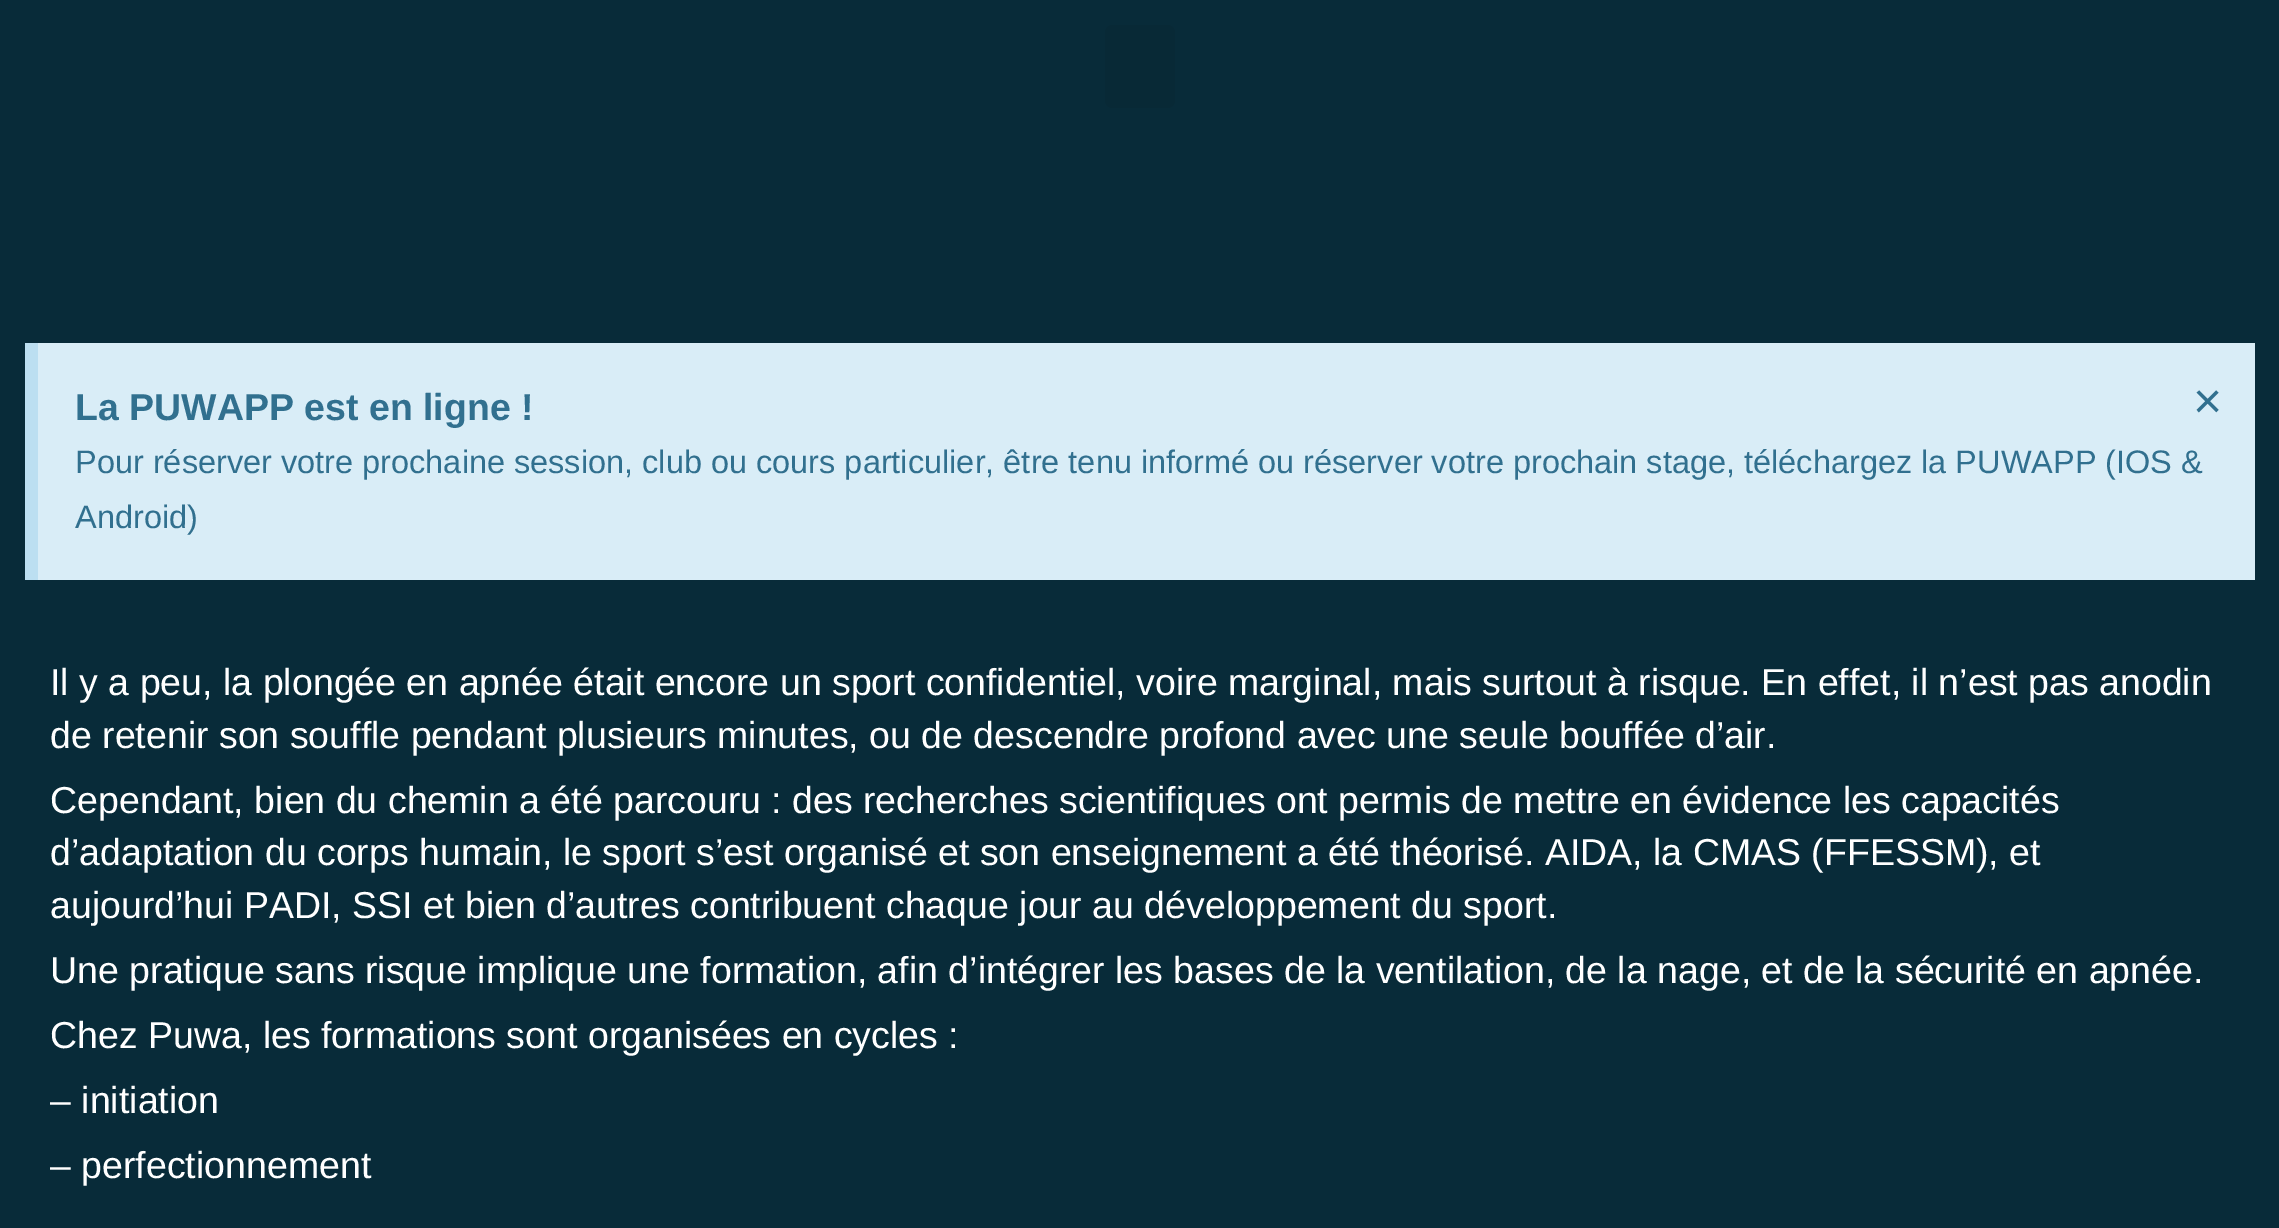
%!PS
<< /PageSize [2279 1228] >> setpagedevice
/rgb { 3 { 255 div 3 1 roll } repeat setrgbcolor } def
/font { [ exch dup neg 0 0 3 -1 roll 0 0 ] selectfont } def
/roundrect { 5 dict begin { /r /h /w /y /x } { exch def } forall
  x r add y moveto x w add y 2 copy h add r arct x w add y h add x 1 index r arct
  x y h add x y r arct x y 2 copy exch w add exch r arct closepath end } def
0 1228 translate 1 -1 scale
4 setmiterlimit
8 43 57 rgb
0 0 2279 1228 rectfill
8 41 54 rgb
1105 25 70 83 8 roundrect fill
217 237 247 rgb
38 343 2217 237 rectfill
188 223 241 rgb
25 343 13 237 rectfill
/LiberationSans-Bold 37.5 font
49 112 143 rgb
75 420 moveto (La PUWAPP est en ligne !) show
/LiberationSans-Regular 50 font
2193 418 moveto (×) show
/LiberationSans-Regular 32.5 font
75 473 moveto (Pour réserver votre prochaine session, club ou cours particulier, être tenu informé ou réserver votre prochain stage, téléchargez la PUWAPP \(IOS &) show
75 528 moveto (Android\)) show
/LiberationSans-Regular 37.5 font
255 255 255 rgb
[
  [(Il y a peu, la plongée en apnée était encore un sport confidentiel, voire marginal, mais surtout à risque. En effet, il n’est pas anodin) 50 695]
  [(de retenir son souffle pendant plusieurs minutes, ou de descendre profond avec une seule bouffée d’air.) 50 748]
  [(Cependant, bien du chemin a été parcouru : des recherches scientifiques ont permis de mettre en évidence les capacités) 50 813]
  [(d’adaptation du corps humain, le sport s’est organisé et son enseignement a été théorisé. AIDA, la CMAS \(FFESSM\), et) 50 865]
  [(aujourd’hui PADI, SSI et bien d’autres contribuent chaque jour au développement du sport.) 50 918]
  [(Une pratique sans risque implique une formation, afin d’intégrer les bases de la ventilation, de la nage, et de la sécurité en apnée.) 50 983]
  [(Chez Puwa, les formations sont organisées en cycles :) 50 1048]
  [(– initiation) 50 1113]
  [(– perfectionnement) 50 1178]
] { aload pop moveto show } forall
showpage
